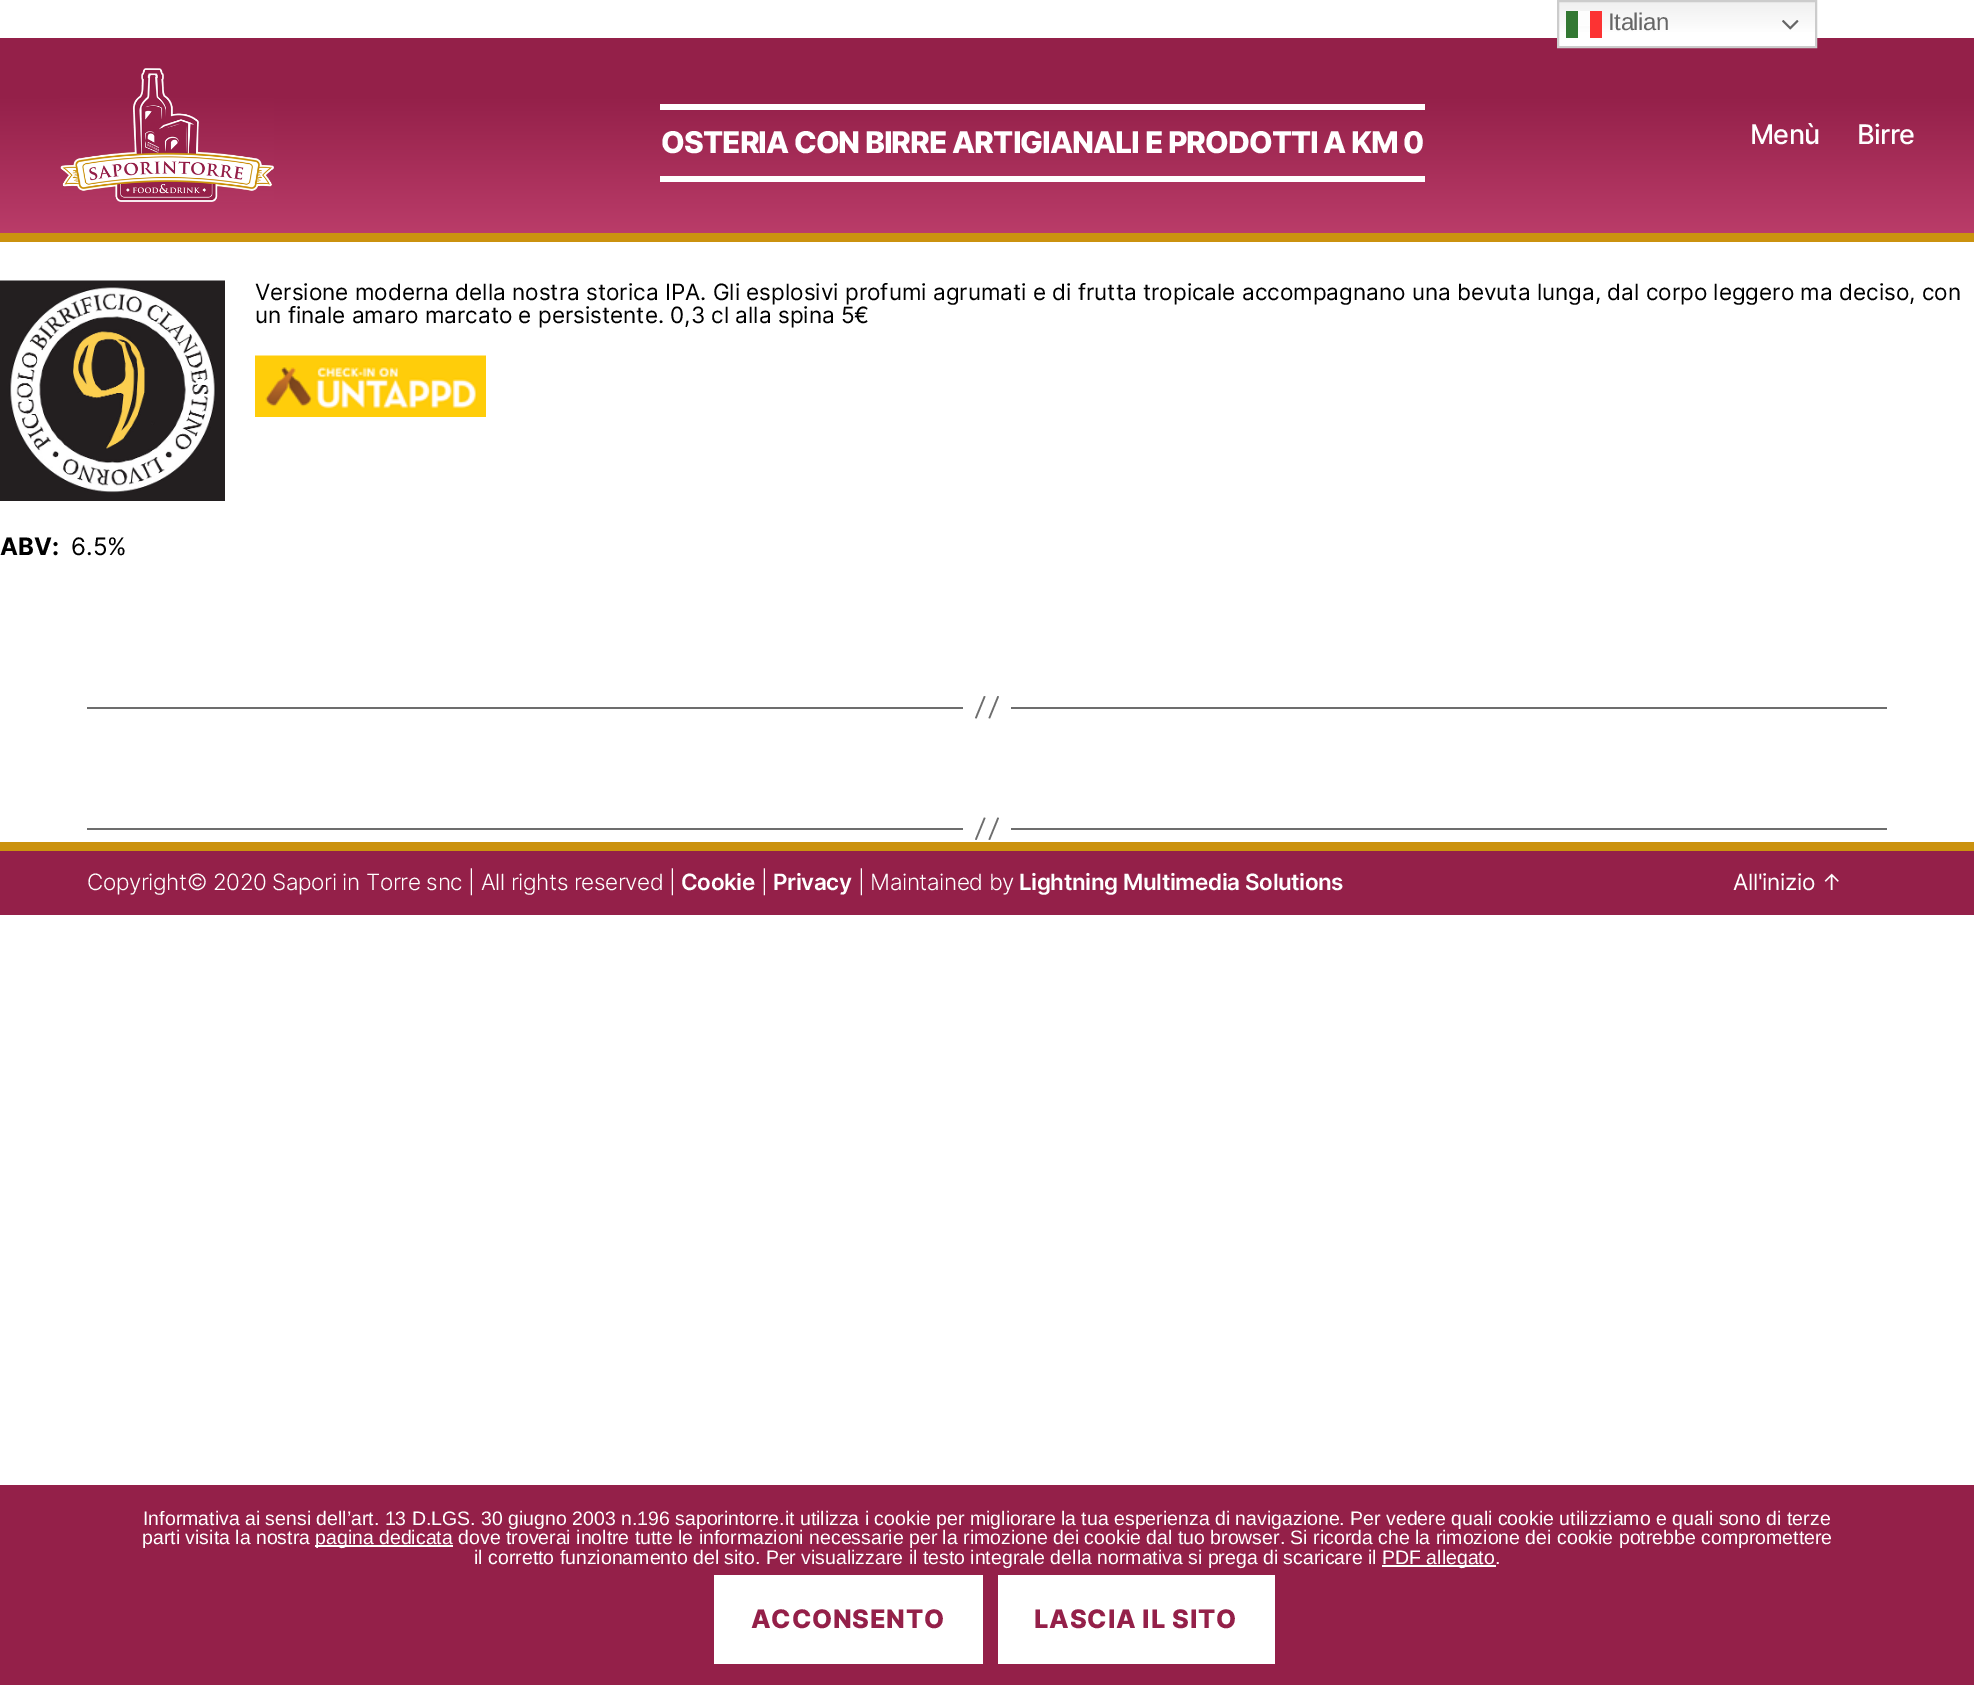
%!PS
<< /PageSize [1974 1685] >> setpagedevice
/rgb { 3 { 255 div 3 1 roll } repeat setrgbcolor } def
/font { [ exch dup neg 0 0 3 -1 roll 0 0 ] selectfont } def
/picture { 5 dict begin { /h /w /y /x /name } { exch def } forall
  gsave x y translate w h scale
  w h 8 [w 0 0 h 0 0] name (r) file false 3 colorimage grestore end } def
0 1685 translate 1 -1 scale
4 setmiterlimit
255 255 255 rgb
0 0 1974 1685 rectfill
gsave 0 38 moveto 1974 38 lineto 1974 233 lineto 0 233 lineto closepath clip newpath
<< /ShadingType 2 /ColorSpace /DeviceRGB /Coords [987 37 987 233] /Extend [true true] /Function << /FunctionType 3 /Domain [0 1] /Functions [<< /FunctionType 2 /Domain [0 1] /C0 [0.58 0.125 0.286] /C1 [0.58 0.125 0.286] /N 1 >> << /FunctionType 2 /Domain [0 1] /C0 [0.58 0.125 0.286] /C1 [0.729 0.235 0.412] /N 1 >>] /Bounds [0.3] /Encode [0 1 0 1] >> >> shfill grestore
gsave 1559 2 moveto 1815 2 lineto 1815 46 lineto 1559 46 lineto closepath clip newpath
<< /ShadingType 2 /ColorSpace /DeviceRGB /Coords [1687 0 1687 48] /Extend [true true] /Function << /FunctionType 3 /Domain [0 1] /Functions [<< /FunctionType 2 /Domain [0 1] /C0 [0.937 0.937 0.937] /C1 [1 1 1] /N 1 >> << /FunctionType 2 /Domain [0 1] /C0 [1 1 1] /C1 [1 1 1] /N 1 >>] /Bounds [0.7] /Encode [0 1 0 1] >> >> shfill grestore
gsave 1578 11 moveto 1590 11 lineto 1590 26 lineto 1578 26 lineto closepath clip newpath
<< /ShadingType 2 /ColorSpace /DeviceRGB /Coords [1687 0 1687 48] /Extend [true true] /Function << /FunctionType 3 /Domain [0 1] /Functions [<< /FunctionType 2 /Domain [0 1] /C0 [0.988 0.988 0.988] /C1 [1 1 1] /N 1 >> << /FunctionType 2 /Domain [0 1] /C0 [1 1 1] /C1 [1 1 1] /N 1 >>] /Bounds [0.7] /Encode [0 1 0 1] >> >> shfill grestore
204 204 204 rgb
2 setlinewidth
1558 1 258 46 rectstroke
51 120 51 rgb
1566 11 12 27 rectfill
252 51 51 rgb
1590 11 12 27 rectfill
(img/1.rgb) 1782 20 17 10 picture
203 146 15 rgb
0 233 1974 9 rectfill
(img/2.rgb) 60 68 214 134 picture
255 255 255 rgb
660 104 765 6 rectfill
660 176 765 6 rectfill
(img/3.rgb) 0 280 225 221 picture
(img/4.rgb) 255 355 231 62 picture
109 109 109 rgb
1011 707 876 2 rectfill
87 707 876 2 rectfill
984 696 moveto 985.5 696.5 lineto 976.5 718.5 lineto 975 718 lineto closepath 997.5 696 moveto 999 696.5 lineto 990 718.5 lineto 988.5 718 lineto closepath fill
1011 828 876 2 rectfill
87 828 876 2 rectfill
984 817.5 moveto 985.5 818 lineto 976.5 840 lineto 975 839.5 lineto closepath 997.5 817.5 moveto 999 818 lineto 990 840 lineto 988.5 839.5 lineto closepath fill
[
  [0 851 1974 64 148 32 73]
  [0 842 1974 9 203 146 15]
  [0 1485 1974 200 148 32 73]
  [315 1545 138 2 255 255 255]
  [1382 1565 114 2 255 255 255]
  [714 1575 269 89 255 255 255]
  [998 1575 277 89 255 255 255]
] { aload pop rgb rectfill } forall
/LiberationSans-Regular 24 font
102 102 102 rgb
1608 30 moveto -0.4 0 (Italian) ashow
/Inter-ExtraBold 30 font
255 255 255 rgb
661 153 moveto -0.95 0 (OSTERIA CON BIRRE ARTIGIANALI E PRODOTTI A KM 0) ashow
/Inter-Medium 27 font
1750 144 moveto -0.75 0 (Menù) ashow
1857 144 moveto -0.75 0 (Birre) ashow
/Inter-Regular 22.5 font
0 0 0 rgb
255 300 moveto (Versione moderna della nostra storica IPA. Gli esplosivi profumi agrumati e di frutta tropicale accompagnano una bevuta lunga, dal corpo leggero ma deciso, con) show
255 323 moveto (un finale amaro marcato e persistente. 0,3 cl alla spina 5€) show
/Inter-Bold 24 font
0 555 moveto (ABV:) show
/Inter-Regular 24 font
71 555 moveto (6.5%) show
/Inter-Light 22.5 font
255 255 255 rgb
87 890 moveto -0.4 0 (Copyright© 2020 Sapori in Torre snc | All rights reserved |) ashow
/Inter-SemiBold 22.5 font
681 890 moveto -0.4 0 (Cookie) ashow
/Inter-Light 22.5 font
761 890 moveto -0.4 0 (|) ashow
/Inter-SemiBold 22.5 font
773 890 moveto -0.4 0 (Privacy) ashow
/Inter-Light 22.5 font
858 890 moveto -0.4 0 (| Maintained by) ashow
/Inter-SemiBold 22.5 font
1019 890 moveto -0.4 0 (Lightning Multimedia Solutions) ashow
/Inter-Regular 22.5 font
1733 890 moveto -0.4 0 (All'inizio ↑) ashow
/LiberationSans-Regular 19.5 font
[
  [(Informativa ai sensi dell’art. 13 D.LGS. 30 giugno 2003 n.196 saporintorre.it utilizza i cookie per migliorare la tua esperienza di navigazione. Per vedere quali cookie utilizziamo e quali sono di terze) 143 1525]
  [(parti visita la nostra) 142 1544]
  [(pagina dedicata dove troverai inoltre tutte le informazioni necessarie per la rimozione dei cookie dal tuo browser. Si ricorda che la rimozione dei cookie potrebbe compromettere) 315 1544]
  [(il corretto funzionamento del sito. Per visualizzare il testo integrale della normativa si prega di scaricare il) 474 1564]
  [(PDF allegato.) 1382 1564]
] { aload pop moveto show } forall
/Inter-ExtraBold 25.5 font
148 32 73 rgb
751 1628 moveto 0.8 0 (ACCONSENTO) ashow
1034 1628 moveto 0.8 0 (LASCIA IL SITO) ashow
showpage
